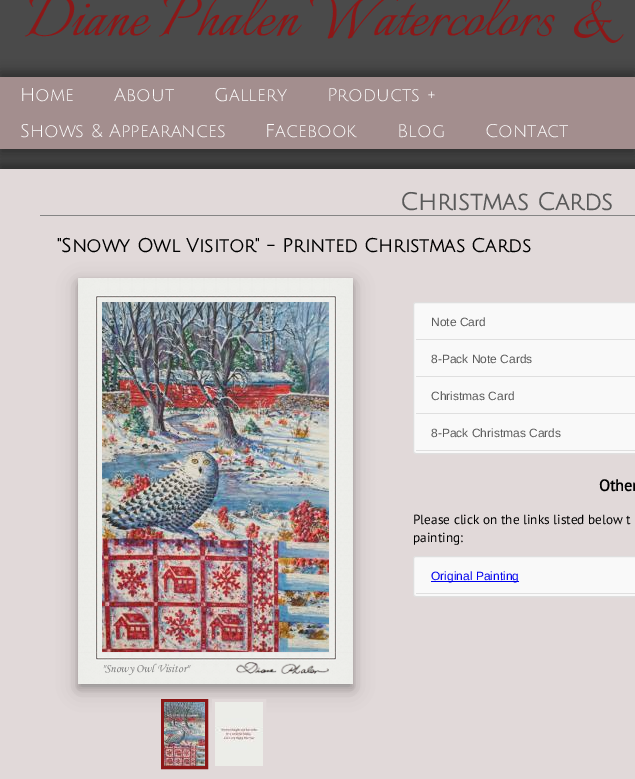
%!PS
<< /PageSize [635 779] /PageUsesTransparency true >> setpagedevice
/rgb { 3 { 255 div 3 1 roll } repeat setrgbcolor } def
/font { [ exch dup neg 0 0 3 -1 roll 0 0 ] selectfont } def
/alpha { dup .setfillconstantalpha .setstrokeconstantalpha } def
/roundrect { 5 dict begin { /r /h /w /y /x } { exch def } forall
  x r add y moveto x w add y 2 copy h add r arct x w add y h add x 1 index r arct
  x y h add x y r arct x y 2 copy exch w add exch r arct closepath end } def
/shadow { 12 dict begin { /a /b /q /h /w /y /x } { exch def } forall gsave /was 0 def
  9 -2 -9 { dup b mul 4 div /e exch def 1 sub .425 mul 2.718 exch exp 1 add a .99 .min exch div /now exch def
    1 1 now sub 1 was sub div sub alpha /was now def
    w h .min e 2 mul add 0 gt { x e sub y e sub w e 2 mul add h e 2 mul add
      q e add b .6 mul add w h .min 2 div e add .min 0 .max roundrect fill } if } for grestore end } def
/picture { 5 dict begin { /h /w /y /x /name } { exch def } forall
  gsave x y translate w h scale
  w h 8 [w 0 0 h 0 0] name (r) file false 3 colorimage grestore end } def
0 .pushpdf14devicefilter
0 779 translate 1 -1 scale
4 setmiterlimit
74 74 74 rgb
0 0 635 779 rectfill
46 46 46 rgb
0 72 635 72 0 6 1 shadow
0 82 635 72 0 6 1 shadow
163 142 142 rgb
0 77 635 72 rectfill
46 46 46 rgb
-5 169 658 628 0 6 1 shadow
0 164 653 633 0 6 1 shadow
225 217 217 rgb
0 169 635 610 rectfill
133 133 133 rgb
40 215 595 1 rectfill
249 249 249 rgb
413.5 302.5 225 151 2.5 roundrect gsave fill grestore
223 223 223 rgb
stroke
[
  [416 339 219 1 223 223 223]
  [416 376 219 1 223 223 223]
  [416 413 219 1 223 223 223]
  [416 450 219 1 223 223 223]
] { aload pop rgb rectfill } forall
249 249 249 rgb
413.5 556.5 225 40 2.5 roundrect gsave fill grestore
223 223 223 rgb
stroke
416 593 219 1 rectfill
0 0 238 rgb
431 581 88 1 rectfill
0 0 0 rgb
78 284 275 406 0 10 0.19 shadow
78 282 275 406 0 4 0.2 shadow
(img/1.rgb) 78 278 24 24 picture
(img/2.rgb) 102 278 227 24 picture
(img/3.rgb) 329 278 24 24 picture
(img/4.rgb) 78 302 24 350 picture
(img/5.rgb) 102 302 227 350 picture
(img/6.rgb) 329 302 24 350 picture
(img/7.rgb) 78 652 24 32 picture
(img/8.rgb) 102 652 227 32 picture
(img/9.rgb) 236 662 93 12 picture
(img/10.rgb) 329 652 24 32 picture
139 24 24 rgb
3 setlinewidth
162.5 700.5 44 67 rectstroke
225 217 217 rgb
213.5 700.5 51 67 rectstroke
(img/11.rgb) 164 702 41 64 picture
(img/12.rgb) 215 702 48 64 picture
/Italianno-Regular 72 font
139 24 24 rgb
25 35 moveto (Diane Phalen Watercolors &) show
/JuliusSansOne-Regular 18 font
255 255 255 rgb
[
  [(Home) 20 101]
  [(About) 114 101]
  [(Gallery) 214 101]
  [(Products +) 327 101]
  [(Shows & Appearances) 20 137]
  [(Facebook) 265 137]
  [(Blog) 397 137]
  [(Contact) 485 137]
] { aload pop moveto show } forall
/JuliusSansOne-Bold 24 font
90 90 90 rgb
400 210 moveto (Christmas Cards) show
/JuliusSansOne-Bold 18.75 font
0 0 0 rgb
57 252 moveto ("Snowy Owl Visitor" - Printed Christmas Cards) show
/LiberationSans-Regular 12 font
90 90 90 rgb
[
  [(Note Card) 431 326]
  [(8-Pack Note Cards) 431 363]
  [(Christmas Card) 431 400]
  [(8-Pack Christmas Cards) 431 437]
] { aload pop moveto show } forall
/PTSans-Bold 16 font
0 0 0 rgb
599 491 moveto (Other) show
/PTSans-Regular 13.3 font
413 524 moveto (Please click on the links listed below t) show
413 542 moveto (painting:) show
/LiberationSans-Regular 12 font
0 0 238 rgb
431 580 moveto (Original Painting) show
/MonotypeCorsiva-Italic 12 font
128 128 128 rgb
102 672 moveto ("Snowy Owl Visitor") show
.poppdf14devicefilter showpage
